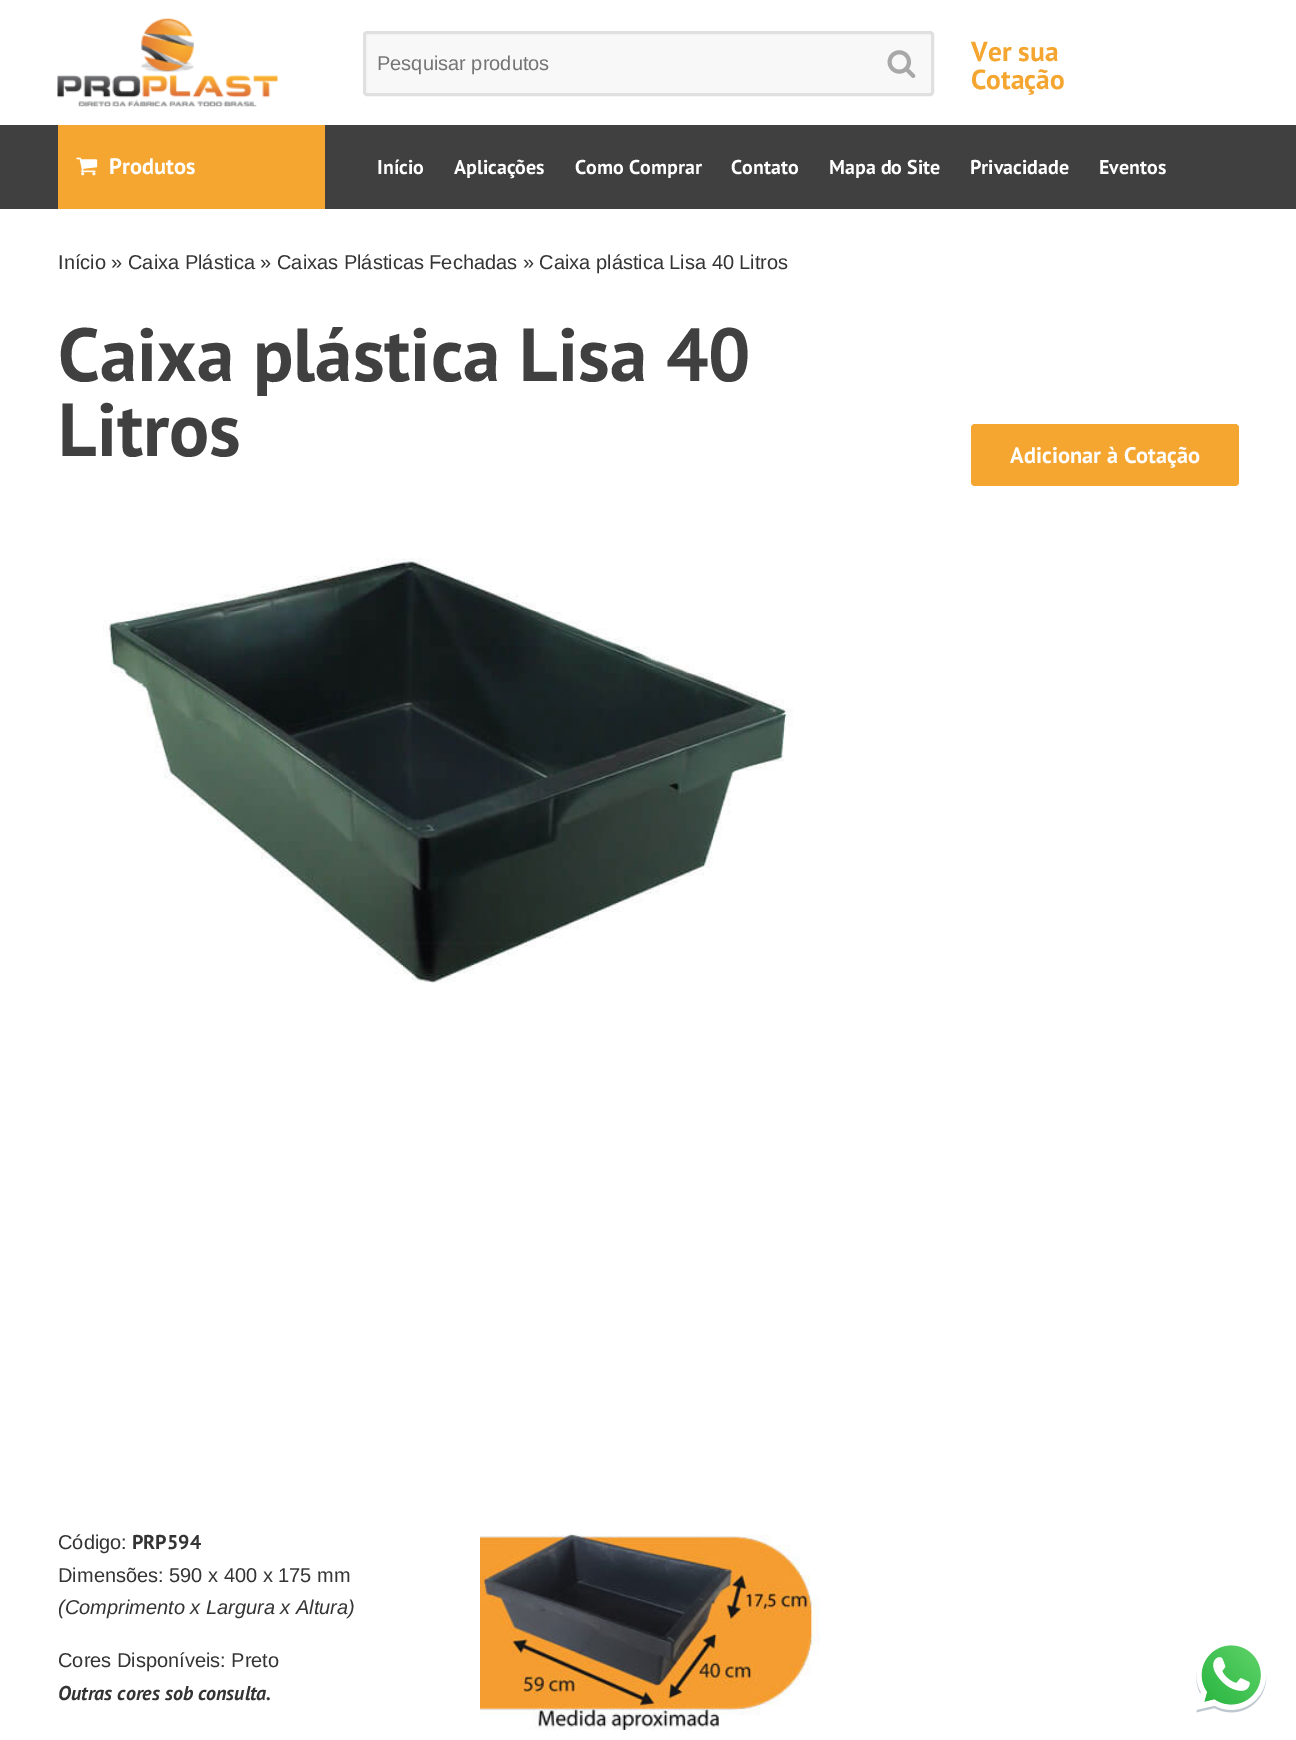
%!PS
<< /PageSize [1296 1740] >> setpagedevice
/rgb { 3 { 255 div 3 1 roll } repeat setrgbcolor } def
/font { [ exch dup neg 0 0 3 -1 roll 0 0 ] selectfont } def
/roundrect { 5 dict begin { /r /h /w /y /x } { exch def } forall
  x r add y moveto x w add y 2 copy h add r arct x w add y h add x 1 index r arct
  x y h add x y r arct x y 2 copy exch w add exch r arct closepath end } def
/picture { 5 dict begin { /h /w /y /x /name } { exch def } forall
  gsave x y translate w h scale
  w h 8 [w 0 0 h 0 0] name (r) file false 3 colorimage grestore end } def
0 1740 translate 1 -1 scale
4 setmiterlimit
255 255 255 rgb
0 0 1296 1740 rectfill
(img/1.rgb) 57 18 221 89 picture
248 248 248 rgb
364.5 32.5 568 62 2.5 roundrect gsave fill grestore
225 224 224 rgb
3 setlinewidth
stroke
(img/2.rgb) 887 50 29 28 picture
64 64 65 rgb
0 125 1296 84 rectfill
245 166 49 rgb
58 125 267 84 rectfill
(img/3.rgb) 76 157 22 19 picture
(img/4.rgb) 103 558 690 425 picture
(img/5.rgb) 480 1533 340 197 picture
971 424 268 62 4 roundrect fill
(img/6.rgb) 1196 1645 71 68 picture
/LiberationSans-Regular 20 font
117 117 117 rgb
377 70 moveto (Pesquisar produtos) show
/PTSans-Bold 27.5 font
245 166 49 rgb
971 61 moveto (Ver sua) show
971 89 moveto (Cotação) show
/PTSans-Bold 22.5 font
255 255 255 rgb
109 174 moveto (Produtos) show
/PTSans-Bold 20 font
[
  [(Início) 377 174]
  [(Aplicações) 454 174]
  [(Como Comprar) 575 174]
  [(Contato) 731 174]
  [(Mapa do Site) 829 174]
  [(Privacidade) 970 174]
  [(Eventos) 1099 174]
] { aload pop moveto show } forall
/LiberationSans-Regular 20 font
52 52 52 rgb
58 269 moveto (Início » Caixa Plástica » Caixas Plásticas Fechadas » Caixa plástica Lisa 40 Litros) show
/PTSans-Bold 75 font
64 64 65 rgb
58 381 moveto (Caixa plástica Lisa 40) show
58 456 moveto (Litros) show
/LiberationSans-Regular 20 font
52 52 52 rgb
58 1549 moveto (Código:) show
/PTSans-Bold 20 font
132 1549 moveto (PRP594) show
/LiberationSans-Regular 20 font
58 1582 moveto (Dimensões: 590 x 400 x 175 mm) show
/LiberationSans-Italic 20 font
58 1614 moveto (\(Comprimento x Largura x Altura\)) show
/LiberationSans-Regular 20 font
58 1667 moveto (Cores Disponíveis: Preto) show
/PTSans-BoldItalic 20 font
58 1700 moveto (Outras cores sob consulta.) show
/PTSans-Bold 22.5 font
255 255 255 rgb
1010 463 moveto (Adicionar à Cotação) show
showpage
